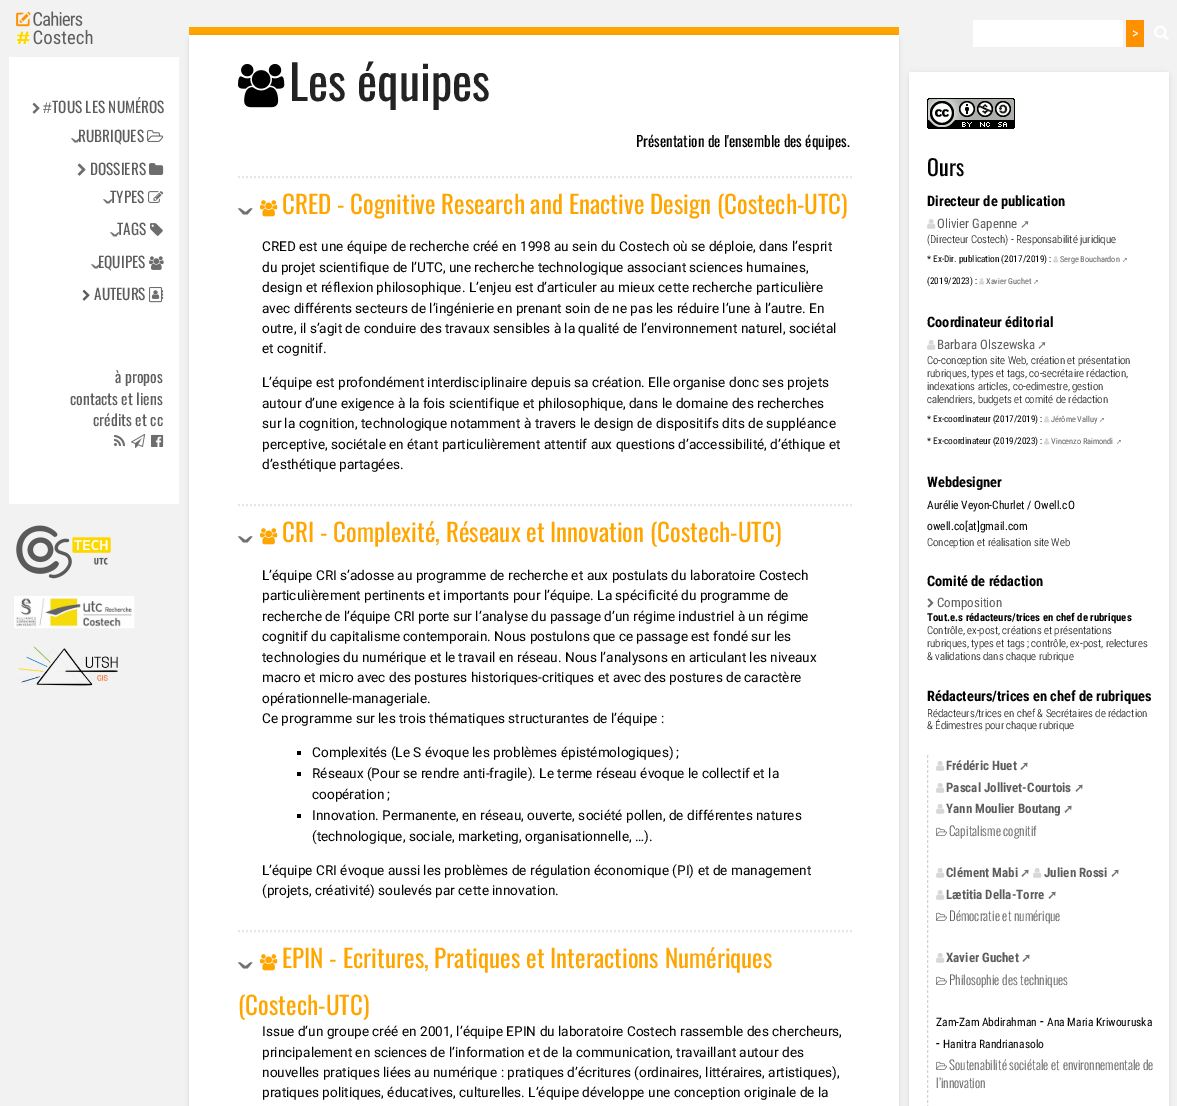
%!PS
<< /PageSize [1177 1106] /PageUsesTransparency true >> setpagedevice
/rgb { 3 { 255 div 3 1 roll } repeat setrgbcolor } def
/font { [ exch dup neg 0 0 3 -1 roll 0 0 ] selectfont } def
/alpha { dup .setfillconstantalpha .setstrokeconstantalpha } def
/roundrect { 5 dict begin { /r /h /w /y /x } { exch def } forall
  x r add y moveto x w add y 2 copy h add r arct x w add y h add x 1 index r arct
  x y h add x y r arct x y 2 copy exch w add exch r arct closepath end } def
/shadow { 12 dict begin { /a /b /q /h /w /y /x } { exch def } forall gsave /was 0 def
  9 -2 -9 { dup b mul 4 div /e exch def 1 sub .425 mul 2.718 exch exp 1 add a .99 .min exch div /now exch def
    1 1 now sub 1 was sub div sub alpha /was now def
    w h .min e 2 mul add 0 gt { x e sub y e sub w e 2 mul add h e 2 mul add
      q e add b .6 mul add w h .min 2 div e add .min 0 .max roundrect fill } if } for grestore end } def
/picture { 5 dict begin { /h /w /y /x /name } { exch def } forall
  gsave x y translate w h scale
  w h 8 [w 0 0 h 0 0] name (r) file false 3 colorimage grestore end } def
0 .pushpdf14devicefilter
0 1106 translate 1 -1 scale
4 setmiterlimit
242 242 242 rgb
0 0 1177 1106 rectfill
(img/1.rgb) 16 11 77 34 picture
255 255 255 rgb
973 20 150 27 rectfill
255 145 0 rgb
1126 20 18 27 rectfill
(img/2.rgb) 1154 25 15 15 picture
255 255 255 rgb
9 57 170 447 rectfill
(img/3.rgb) 32 102 8 12 picture
(img/4.rgb) 147 130 17 12 picture
(img/5.rgb) 77 163 9 13 picture
(img/6.rgb) 149 163 15 12 picture
(img/7.rgb) 148 191 16 12 picture
(img/8.rgb) 150 223 13 13 picture
(img/9.rgb) 149 256 15 14 picture
(img/10.rgb) 82 289 8 12 picture
(img/11.rgb) 149 287 15 16 picture
(img/12.rgb) 114 435 11 11 picture
(img/13.rgb) 131 434 15 14 picture
(img/14.rgb) 151 434 13 13 picture
(img/15.rgb) 16 525 95 54 picture
14.5 596.5 119 31 rectstroke
(img/16.rgb) 15 597 118 30 picture
(img/17.rgb) 18 646 100 40 picture
255 165 0 rgb
189 27 710 8 rectfill
0 0 0 rgb
189 36 710 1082 4 2.5 0.1 shadow
255 255 255 rgb
189 35 710 1071 rectfill
(img/18.rgb) 238 64 47 44 picture
230 230 230 rgb
2 setlinewidth
[2 2] 0 setdash
238 177 moveto 852 177 lineto stroke
(img/19.rgb) 260 200 18 17 picture
238 505 moveto 852 505 lineto stroke
(img/19.rgb) 260 528 18 17 picture
[
  [297 751 4 4 0 0 0]
  [297 772 4 4 0 0 0]
  [297 814 4 4 0 0 0]
] { aload pop rgb rectfill } forall
230 230 230 rgb
238 931 moveto 852 931 lineto stroke
(img/19.rgb) 260 954 18 17 picture
0 0 0 rgb
909 73 260 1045 4 2.5 0.1 shadow
255 255 255 rgb
909 72 260 1034 rectfill
(img/20.rgb) 927 98 88 31 picture
(img/21.rgb) 927 219 9 10 picture
(img/22.rgb) 1053 256 6 7 picture
(img/22.rgb) 979 278 6 7 picture
(img/21.rgb) 927 340 9 10 picture
(img/22.rgb) 1044 416 6 7 picture
(img/22.rgb) 1044 438 6 7 picture
(img/23.rgb) 927 598 7 10 picture
211 211 211 rgb
1 setlinewidth
[3 2] 0 setdash
927.5 755 moveto 927.5 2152 lineto stroke
(img/21.rgb) 936 761 9 10 picture
(img/21.rgb) 936 783 9 10 picture
(img/21.rgb) 936 804 9 10 picture
(img/24.rgb) 936 827 11 9 picture
(img/21.rgb) 936 868 9 10 picture
(img/21.rgb) 1033 868 9 10 picture
(img/21.rgb) 936 890 9 10 picture
(img/24.rgb) 936 912 11 9 picture
(img/21.rgb) 936 953 9 10 picture
(img/24.rgb) 936 976 11 9 picture
(img/24.rgb) 936 1061 11 9 picture
/RobotoCondensed-Regular 14.4 font
255 255 255 rgb
1132 38 moveto (>) show
/LiberationSans-Regular 15.25 font
93 93 93 rgb
43 113 moveto (#) show
/Oswald-Regular 15.25 font
52 113 moveto (TOUS LES NUMÉROS) show
/LiberationSans-Regular 30 font
114 114 114 rgb
71 160 moveto (ˇ) show
/Oswald-Regular 15.25 font
93 93 93 rgb
78 142 moveto (RUBRIQUES) show
90 175 moveto (DOSSIERS) show
/LiberationSans-Regular 30 font
114 114 114 rgb
103 221 moveto (ˇ) show
/Oswald-Regular 15.25 font
93 93 93 rgb
110 203 moveto (TYPES) show
/LiberationSans-Regular 30 font
114 114 114 rgb
110 254 moveto (ˇ) show
/Oswald-Regular 15.25 font
93 93 93 rgb
117 235 moveto (TAGS) show
/LiberationSans-Regular 30 font
114 114 114 rgb
91 286 moveto (ˇ) show
/Oswald-Regular 15.25 font
93 93 93 rgb
98 268 moveto (EQUIPES) show
94 300 moveto (AUTEURS) show
/Oswald-Regular 15.5 font
[
  [(à propos) 115 383]
  [(contacts et liens) 70 405]
  [(crédits et cc) 93 426]
] { aload pop moveto show } forall
/Oswald-Regular 48 font
35 35 35 rgb
289 101 moveto (Les équipes) show
/Oswald-Regular 14.9 font
0 0 0 rgb
636 147 moveto (Présentation de l'ensemble des équipes.) show
/LiberationSans-Regular 45 font
114 114 114 rgb
238 241 moveto (ˇ) show
/Oswald-Regular 25.1 font
255 165 0 rgb
282 214 moveto (CRED - Cognitive Research and Enactive Design \(Costech-UTC\)) show
/Roboto-Regular 13.6 font
0 0 0 rgb
[
  [(CRED est une équipe de recherche créé en 1998 au sein du Costech où se déploie, dans l’esprit) 262 251]
  [(du projet scientifique de l’UTC, une recherche technologique associant sciences humaines,) 262 272]
  [(design et réflexion philosophique. L’enjeu est d’articuler au mieux cette recherche particulière) 262 292]
  [(avec différents secteurs de l’ingénierie en prenant soin de ne pas les réduire l’une à l’autre. En) 262 313]
  [(outre, il s’agit de conduire des travaux sensibles à la qualité de l’environnement naturel, sociétal) 262 333]
  [(et cognitif.) 262 353]
  [(L’équipe est profondément interdisciplinaire depuis sa création. Elle organise donc ses projets) 262 387]
  [(autour d’une exigence à la fois scientifique et philosophique, dans le domaine des recherches) 262 408]
  [(sur la cognition, technologique notamment à travers le design de dispositifs dits de suppléance) 262 428]
  [(perceptive, sociétale en étant particulièrement attentif aux questions d’accessibilité, d’éthique et) 262 449]
  [(d’esthétique partagées.) 262 469]
] { aload pop moveto show } forall
/LiberationSans-Regular 45 font
114 114 114 rgb
238 569 moveto (ˇ) show
/Oswald-Regular 25.1 font
255 165 0 rgb
282 542 moveto (CRI - Complexité, Réseaux et Innovation \(Costech-UTC\)) show
/Roboto-Regular 13.6 font
0 0 0 rgb
[
  [(L’équipe CRI s’adosse au programme de recherche et aux postulats du laboratoire Costech) 262 580]
  [(particulièrement pertinents et importants pour l’équipe. La spécificité du programme de) 262 600]
  [(recherche de l’équipe CRI porte sur l’analyse du passage d’un régime industriel à un régime) 262 621]
  [(cognitif du capitalisme contemporain. Nous postulons que ce passage est fondé sur les) 262 641]
  [(technologies du numérique et le travail en réseau. Nous l’analysons en articulant les niveaux) 262 662]
  [(macro et micro avec des postures historiques-critiques et avec des postures de caractère) 262 682]
  [(opérationnelle-manageriale.) 262 703]
  [(Ce programme sur les trois thématiques structurantes de l’équipe :) 262 723]
  [(Complexités \(Le S évoque les problèmes épistémologiques\)) 312 757]
  [(;) 676 757]
  [(Réseaux \(Pour se rendre anti-fragile\). Le terme réseau évoque le collectif et la) 312 778]
  [(coopération) 312 799]
  [(;) 387 799]
  [(Innovation. Permanente, en réseau, ouverte, société pollen, de différentes natures) 312 820]
  [(\(technologique, sociale, marketing, organisationnelle, …\).) 312 841]
  [(L’équipe CRI évoque aussi les problèmes de régulation économique \(PI\) et de management) 262 875]
  [(\(projets, créativité\) soulevés par cette innovation.) 262 895]
] { aload pop moveto show } forall
/LiberationSans-Regular 45 font
114 114 114 rgb
238 995 moveto (ˇ) show
/Oswald-Regular 25.1 font
255 165 0 rgb
282 968 moveto (EPIN - Ecritures, Pratiques et Interactions Numériques) show
238 1015 moveto (\(Costech-UTC\)) show
/Roboto-Regular 13.6 font
0 0 0 rgb
[
  [(Issue d’un groupe créé en 2001, l’équipe EPIN du laboratoire Costech rassemble des chercheurs,) 262 1036]
  [(principalement en sciences de l’information et de la communication, travaillant autour des) 262 1057]
  [(nouvelles pratiques liées au numérique : pratiques d’écritures \(ordinaires, littéraires, artistiques\),) 262 1077]
  [(pratiques politiques, éducatives, culturelles. L’équipe développe une conception originale de la) 262 1097]
] { aload pop moveto show } forall
/Oswald-Regular 22 font
927 176 moveto (Ours) show
/RobotoCondensed-Bold 14.4 font
927 206 moveto (Directeur de publication) show
/RobotoCondensed-Regular 13 font
93 93 93 rgb
937 228 moveto (Olivier Gapenne) show
/DejaVuSans-Regular 12 font
114 114 114 rgb
1020 228 moveto (➚) show
/RobotoCondensed-Light 10.8 font
0 0 0 rgb
927 243 moveto (\(Directeur Costech\) - Responsabilité juridique) show
/RobotoCondensed-Regular 9.25 font
927 262 moveto (* Ex-Dir. publication \(2017/2019\) :) show
/RobotoCondensed-Regular 8.25 font
93 93 93 rgb
1060 262 moveto (Serge Bouchardon) show
/DejaVuSans-Regular 7 font
114 114 114 rgb
1122 262 moveto (➚) show
/RobotoCondensed-Regular 9.25 font
0 0 0 rgb
927 284 moveto (\(2019/2023\) :) show
/RobotoCondensed-Regular 8.25 font
93 93 93 rgb
986 284 moveto (Xavier Guchet) show
/DejaVuSans-Regular 7 font
114 114 114 rgb
1033 284 moveto (➚) show
/RobotoCondensed-Bold 14.4 font
0 0 0 rgb
927 327 moveto (Coordinateur éditorial) show
/RobotoCondensed-Regular 13 font
93 93 93 rgb
937 349 moveto (Barbara Olszewska) show
/DejaVuSans-Regular 12 font
114 114 114 rgb
1037 349 moveto (➚) show
/RobotoCondensed-Light 10.8 font
0 0 0 rgb
[
  [(Co-conception site Web, création et présentation) 927 364]
  [(rubriques, types et tags, co-secrétaire rédaction,) 927 377]
  [(indexations articles, co-edimestre, gestion) 927 390]
  [(calendriers, budgets et comité de rédaction) 927 403]
] { aload pop moveto show } forall
/RobotoCondensed-Regular 9.25 font
927 422 moveto (* Ex-coordinateur \(2017/2019\) :) show
/RobotoCondensed-Regular 8.25 font
93 93 93 rgb
1051 422 moveto (Jérôme Valluy) show
/DejaVuSans-Regular 7 font
114 114 114 rgb
1099 422 moveto (➚) show
/RobotoCondensed-Regular 9.25 font
0 0 0 rgb
927 444 moveto (* Ex-coordinateur \(2019/2023\) :) show
/RobotoCondensed-Regular 8.25 font
93 93 93 rgb
1051 444 moveto (Vincenzo Raimondi) show
/DejaVuSans-Regular 7 font
114 114 114 rgb
1116 444 moveto (➚) show
/RobotoCondensed-Bold 14.4 font
0 0 0 rgb
927 487 moveto (Webdesigner) show
/RobotoCondensed-Regular 11.5 font
927 509 moveto (Aurélie Veyon-Churlet / Owell.cO) show
927 530 moveto (owell.co[at]gmail.com) show
/RobotoCondensed-Light 10.8 font
927 546 moveto (Conception et réalisation site Web) show
/RobotoCondensed-Bold 14.4 font
927 586 moveto (Comité de rédaction) show
/RobotoCondensed-Regular 13 font
93 93 93 rgb
937 607 moveto (Composition) show
/RobotoCondensed-Bold 10.8 font
0 0 0 rgb
927 621 moveto (Tout.e.s rédacteurs/trices en chef de rubriques) show
/RobotoCondensed-Light 10.8 font
[
  [(Contrôle, ex-post, créations et présentations) 927 634]
  [(rubriques, types et tags) 927 647]
  [(; contrôle, ex-post, relectures) 1027 647]
  [(& validations dans chaque rubrique) 927 660]
] { aload pop moveto show } forall
/RobotoCondensed-Bold 14.4 font
927 701 moveto (Rédacteurs/trices en chef de rubriques) show
/RobotoCondensed-Light 10.8 font
927 717 moveto (Rédacteurs/trices en chef & Secrétaires de rédaction) show
927 729 moveto (& Édimestres pour chaque rubrique) show
/RobotoCondensed-Bold 13 font
93 93 93 rgb
946 770 moveto (Frédéric Huet) show
/DejaVuSans-Bold 12 font
114 114 114 rgb
1019 770 moveto (➚) show
/RobotoCondensed-Bold 13 font
93 93 93 rgb
946 792 moveto (Pascal Jollivet-Courtois) show
/DejaVuSans-Bold 12 font
114 114 114 rgb
1074 792 moveto (➚) show
/RobotoCondensed-Bold 13 font
93 93 93 rgb
946 813 moveto (Yann Moulier Boutang) show
/DejaVuSans-Bold 12 font
114 114 114 rgb
1063 813 moveto (➚) show
/Oswald-Light 13 font
93 93 93 rgb
949 836 moveto (Capitalisme cognitif) show
/RobotoCondensed-Bold 13 font
946 877 moveto (Clément Mabi) show
/DejaVuSans-Bold 12 font
114 114 114 rgb
1020 877 moveto (➚) show
/RobotoCondensed-Bold 13 font
93 93 93 rgb
1044 877 moveto (Julien Rossi) show
/DejaVuSans-Bold 12 font
114 114 114 rgb
1110 877 moveto (➚) show
/RobotoCondensed-Bold 13 font
93 93 93 rgb
946 899 moveto (Lætitia Della-Torre) show
/DejaVuSans-Bold 12 font
114 114 114 rgb
1047 899 moveto (➚) show
/Oswald-Light 13 font
93 93 93 rgb
949 921 moveto (Démocratie et numérique) show
/RobotoCondensed-Bold 13 font
946 962 moveto (Xavier Guchet) show
/DejaVuSans-Bold 12 font
114 114 114 rgb
1021 962 moveto (➚) show
/Oswald-Light 13 font
93 93 93 rgb
949 985 moveto (Philosophie des techniques) show
/RobotoCondensed-Regular 11.5 font
0 0 0 rgb
936 1026 moveto (Zam-Zam Abdirahman) show
/RobotoCondensed-Regular 14.4 font
1040 1026 moveto (-) show
/RobotoCondensed-Regular 11.5 font
1047 1026 moveto (Ana Maria Kriwouruska) show
/RobotoCondensed-Regular 14.4 font
936 1048 moveto (-) show
/RobotoCondensed-Regular 11.5 font
943 1048 moveto (Hanitra Randrianasolo) show
/Oswald-Light 13 font
93 93 93 rgb
949 1070 moveto (Soutenabilité sociétale et environnementale de) show
936 1088 moveto (l’innovation) show
.poppdf14devicefilter showpage
